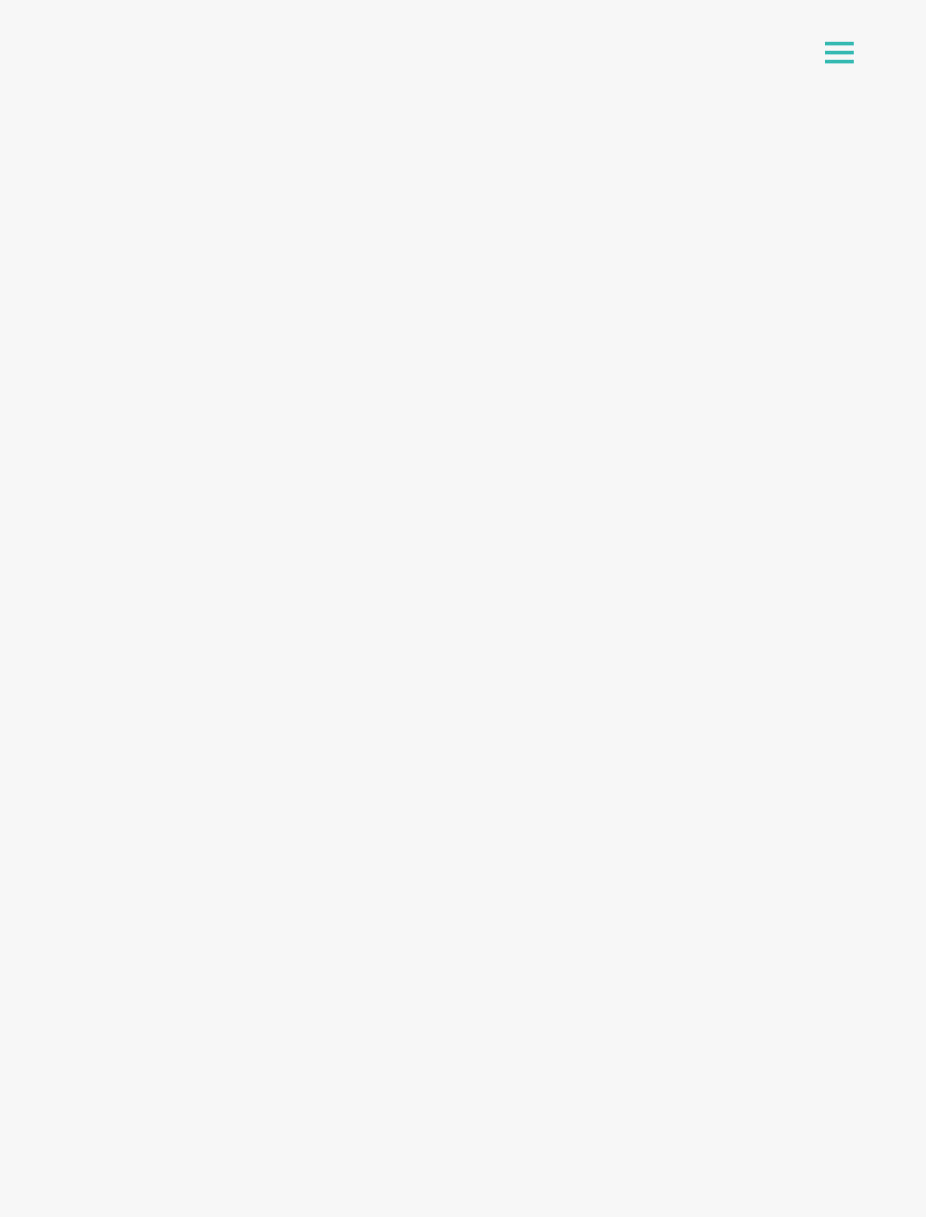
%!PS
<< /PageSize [926 1217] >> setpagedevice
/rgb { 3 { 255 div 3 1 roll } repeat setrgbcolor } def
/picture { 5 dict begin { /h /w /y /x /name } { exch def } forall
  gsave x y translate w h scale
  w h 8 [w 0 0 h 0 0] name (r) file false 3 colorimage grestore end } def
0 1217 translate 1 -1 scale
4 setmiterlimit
246 247 246 rgb
0 0 926 1217 rectfill
(img/1.rgb) 825 41 29 23 picture
showpage
